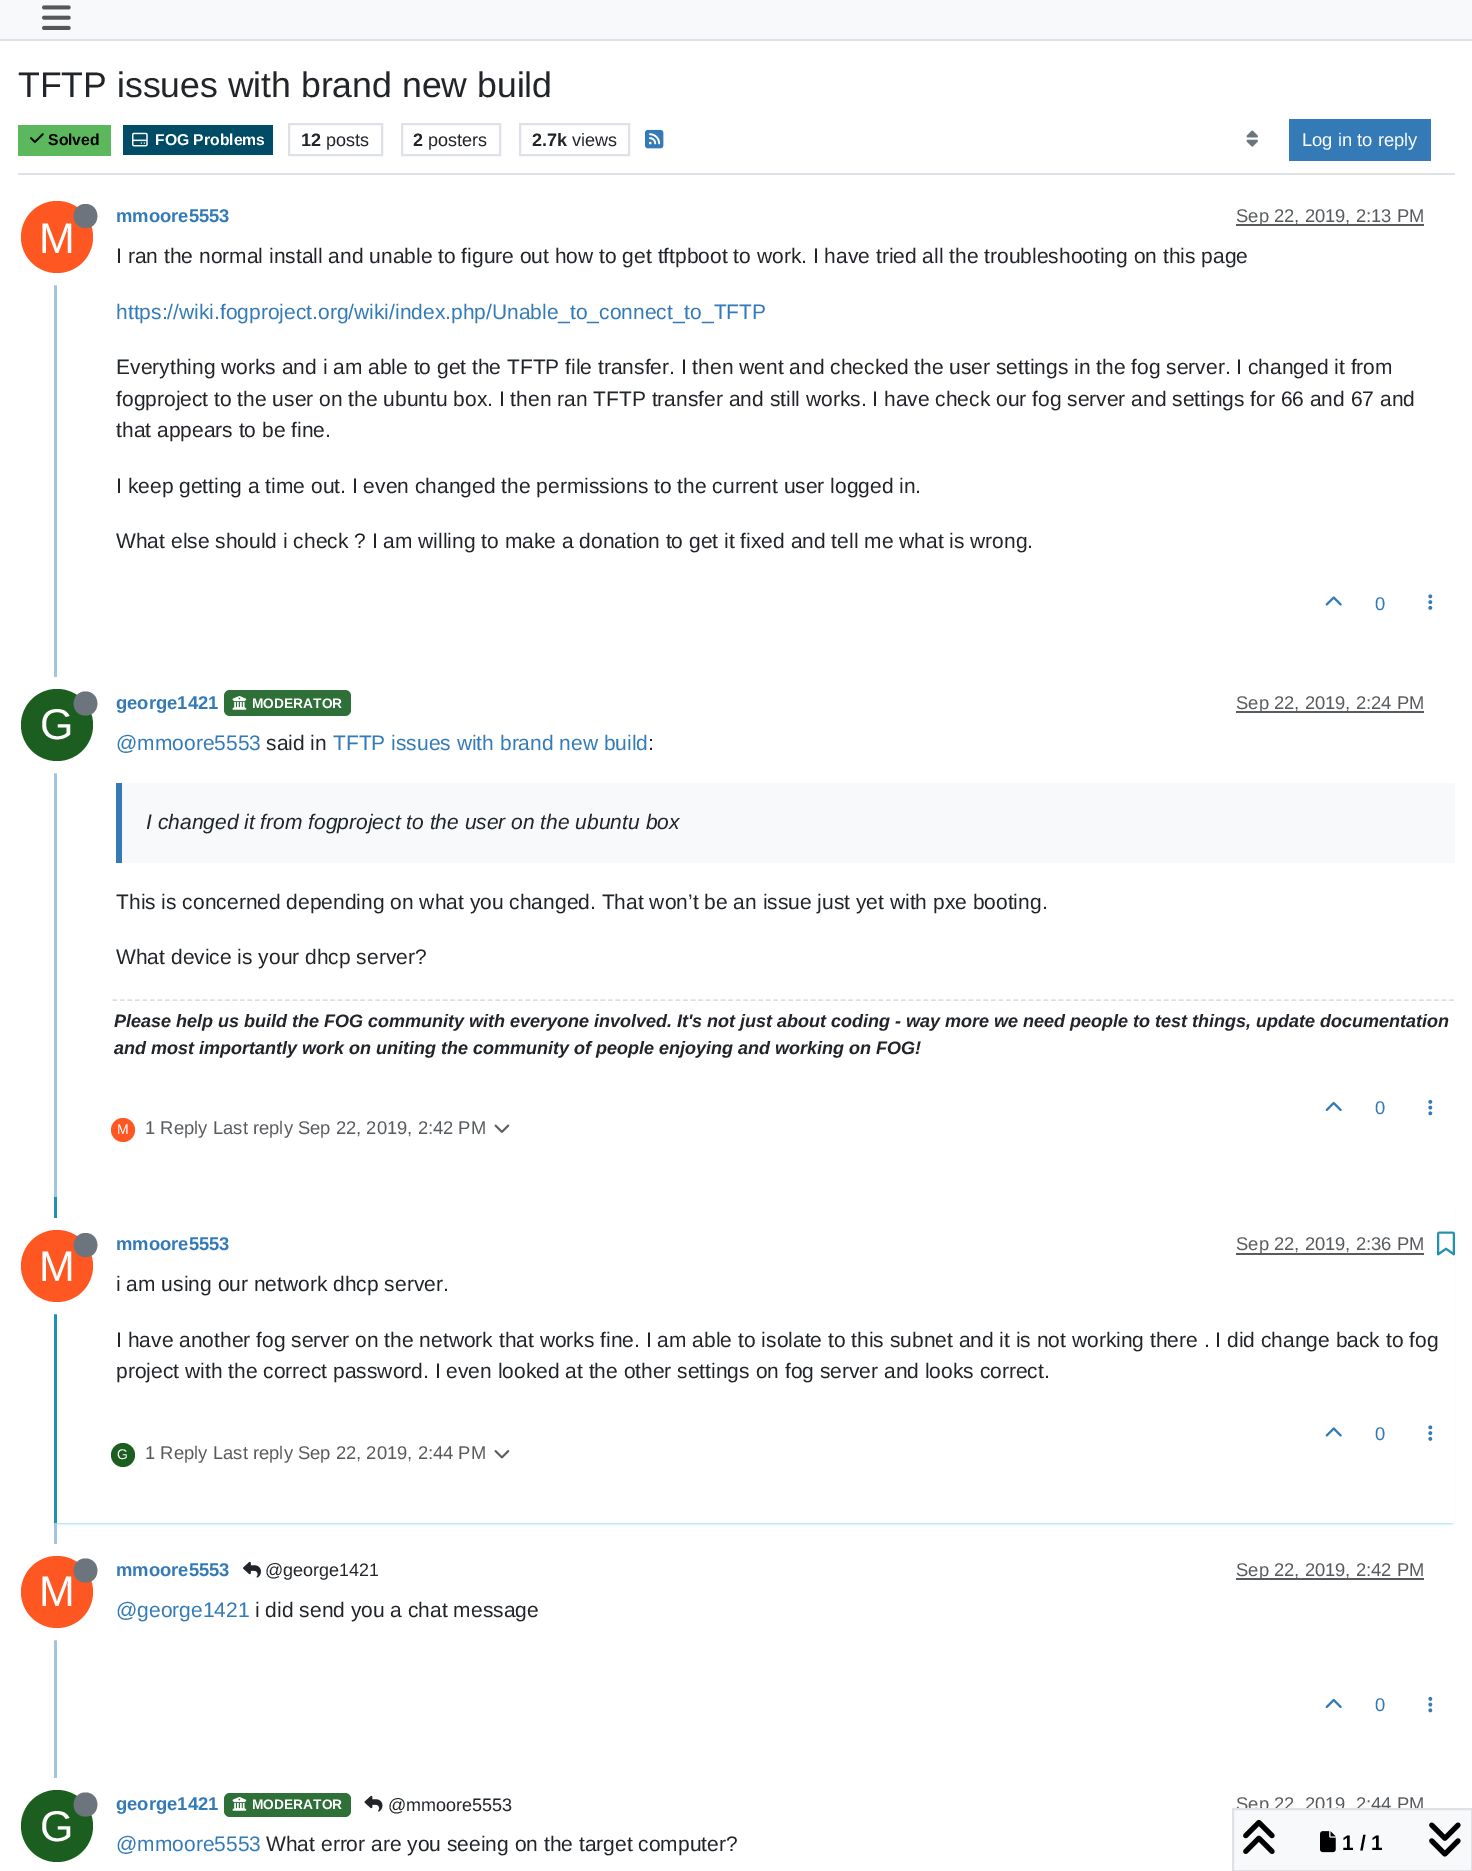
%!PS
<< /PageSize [1472 1871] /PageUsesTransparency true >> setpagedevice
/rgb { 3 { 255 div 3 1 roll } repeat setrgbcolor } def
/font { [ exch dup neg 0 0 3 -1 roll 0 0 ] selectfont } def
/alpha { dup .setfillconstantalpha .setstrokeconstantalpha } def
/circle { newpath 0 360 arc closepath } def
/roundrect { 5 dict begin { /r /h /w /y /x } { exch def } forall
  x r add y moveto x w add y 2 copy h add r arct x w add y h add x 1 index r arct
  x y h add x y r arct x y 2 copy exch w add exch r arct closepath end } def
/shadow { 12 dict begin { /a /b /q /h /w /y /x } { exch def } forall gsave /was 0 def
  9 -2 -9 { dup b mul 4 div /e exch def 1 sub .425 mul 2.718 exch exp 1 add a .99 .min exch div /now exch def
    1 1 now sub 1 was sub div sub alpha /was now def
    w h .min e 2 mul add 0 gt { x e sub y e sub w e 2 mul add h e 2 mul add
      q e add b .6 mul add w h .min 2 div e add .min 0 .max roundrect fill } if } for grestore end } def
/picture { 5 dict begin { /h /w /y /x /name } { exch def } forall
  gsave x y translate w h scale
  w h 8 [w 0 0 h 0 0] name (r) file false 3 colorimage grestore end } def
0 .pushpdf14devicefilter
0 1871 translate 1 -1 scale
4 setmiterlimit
255 255 255 rgb
0 0 1472 1871 rectfill
248 249 250 rgb
0 0 1472 39 rectfill
222 226 230 rgb
0 39 1472 2 rectfill
(img/1.rgb) 42 5 29 25 picture
18 173 1437 2 rectfill
92 184 92 rgb
18 125 93 31 rectfill
(img/2.rgb) 30 133 14 10 picture
0 76 102 rgb
123 125 150 30 rectfill
(img/3.rgb) 132 132 16 15 picture
222 226 230 rgb
2 setlinewidth
289 124 93 31 rectstroke
402 124 98 31 rectstroke
520 124 109 31 rectstroke
(img/4.rgb) 645 129 19 20 picture
(img/5.rgb) 1246 130 12 17 picture
[
  [1289 119 142 42 51 122 183]
  [54 198 3 999 160 196 228]
  [1236 224 188 2 89 92 95]
] { aload pop rgb rectfill } forall
255 255 255 rgb
12 setlinewidth
57 237 42 circle stroke
255 87 34 rgb
57 237 36 circle fill
108 117 125 rgb
85.5 228 moveto 101.5 228 101 204 85.5 204 curveto 70 204 69.5 228 85.5 228 curveto closepath fill
(img/6.rgb) 1325 596 17 10 picture
(img/7.rgb) 1428 594 5 16 picture
47 112 57 rgb
224 690 127 26 6 roundrect fill
(img/8.rgb) 232 696 15 14 picture
89 92 95 rgb
1236 711 188 2 rectfill
255 255 255 rgb
57 725 42 circle stroke
27 94 32 rgb
57 725 36 circle fill
108 117 125 rgb
85.5 715.5 moveto 101.5 715.5 101 691.5 85.5 691.5 curveto 70 691.5 69.5 715.5 85.5 715.5 curveto closepath fill
248 249 250 rgb
122 783 1333 80 rectfill
51 122 183 rgb
116 783 6 80 rectfill
222 222 222 rgb
1.5 setlinewidth
[4.5 3.01] 0 setdash
112.5 1000 moveto 1455 1000 lineto stroke
(img/9.rgb) 1325 1101 17 10 picture
(img/10.rgb) 1428 1099 5 17 picture
255 87 34 rgb
123 1130 12 circle fill
(img/11.rgb) 494 1124 16 9 picture
gsave
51 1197 moveto 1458 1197 lineto 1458 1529 lineto 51 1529 lineto closepath 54 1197 moveto 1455 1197 lineto 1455 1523 lineto 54 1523 lineto closepath eoclip newpath
91 192 222 rgb
57 1203 1395 320 0 1.5 1 shadow
grestore
35 144 176 rgb
54 1197 3 326 rectfill
89 92 95 rgb
1236 1253 188 2 rectfill
(img/12.rgb) 1437 1231 18 25 picture
255 255 255 rgb
12 setlinewidth
[] 0 setdash
57 1266 42 circle stroke
255 87 34 rgb
57 1266 36 circle fill
108 117 125 rgb
85.5 1257 moveto 101.5 1257 101 1233 85.5 1233 curveto 70 1233 69.5 1257 85.5 1257 curveto closepath fill
(img/6.rgb) 1325 1427 17 10 picture
(img/7.rgb) 1428 1425 5 16 picture
27 94 32 rgb
123 1455 12 circle fill
(img/13.rgb) 494 1450 16 9 picture
160 196 228 rgb
54 1523 3 339 rectfill
(img/14.rgb) 243 1561 18 17 picture
89 92 95 rgb
1236 1578 188 2 rectfill
255 255 255 rgb
57 1592 42 circle stroke
255 87 34 rgb
57 1592 36 circle fill
108 117 125 rgb
85.5 1582.5 moveto 101.5 1582.5 101 1558.5 85.5 1558.5 curveto 70 1558.5 69.5 1582.5 85.5 1582.5 curveto closepath fill
(img/9.rgb) 1325 1698 17 10 picture
(img/10.rgb) 1428 1696 5 17 picture
47 112 57 rgb
224 1793 127 24 6 roundrect fill
(img/8.rgb) 232 1797 15 14 picture
(img/15.rgb) 364 1795 19 17 picture
255 255 255 rgb
57 1826 42 circle stroke
27 94 32 rgb
57 1826 36 circle fill
108 117 125 rgb
85.5 1816.5 moveto 101.5 1816.5 101 1792.5 85.5 1792.5 curveto 70 1792.5 69.5 1816.5 85.5 1816.5 curveto closepath fill
/LiberationSans-Regular 35.6 font
33 37 41 rgb
18 97 moveto (TFTP issues with brand new build) show
/LiberationSans-Bold 15.75 font
0 0 0 rgb
48 145 moveto (Solved) show
255 255 255 rgb
155 145 moveto (FOG Problems) show
/LiberationSans-Bold 18 font
33 37 41 rgb
301 146 moveto (12) show
/LiberationSans-Regular 18 font
326 146 moveto (posts) show
/LiberationSans-Bold 18 font
413 146 moveto (2) show
/LiberationSans-Regular 18 font
428 146 moveto (posters) show
/LiberationSans-Bold 18 font
532 146 moveto (2.7k) show
/LiberationSans-Regular 18 font
572 146 moveto (views) show
/LiberationSans-Regular 18.4 font
255 255 255 rgb
1302 146 moveto (Log in to reply) show
/LiberationSans-Bold 18.4 font
51 122 183 rgb
116 222 moveto (mmoore5553) show
/LiberationSans-Regular 18.4 font
88 91 94 rgb
1236 222 moveto (Sep 22, 2019, 2:13 PM) show
/LiberationSans-Regular 43 font
255 255 255 rgb
39 253 moveto (M) show
/LiberationSans-Regular 21 font
33 37 41 rgb
116 263 moveto (I ran the normal install and unable to figure out how to get tftpboot to work. I have tried all the troubleshooting on this page) show
51 122 183 rgb
116 319 moveto (https://wiki.fogproject.org/wiki/index.php/Unable_to_connect_to_TFTP) show
33 37 41 rgb
[
  [(Everything works and i am able to get the TFTP file transfer. I then went and checked the user settings in the fog server. I changed it from) 116 374]
  [(fogproject to the user on the ubuntu box. I then ran TFTP transfer and still works. I have check our fog server and settings for 66 and 67 and) 116 406]
  [(that appears to be fine.) 116 437]
  [(I keep getting a time out. I even changed the permissions to the current user logged in.) 116 493]
  [(What else should i check ? I am willing to make a donation to get it fixed and tell me what is wrong.) 116 548]
] { aload pop moveto show } forall
/LiberationSans-Regular 18.4 font
51 122 183 rgb
1375 610 moveto (0) show
/LiberationSans-Bold 18.4 font
116 709 moveto (george1421) show
/LiberationSans-Bold 13.75 font
255 255 255 rgb
252 708 moveto (MODERATOR) show
/LiberationSans-Regular 18.4 font
88 91 94 rgb
1236 709 moveto (Sep 22, 2019, 2:24 PM) show
/LiberationSans-Regular 43 font
255 255 255 rgb
40 739 moveto (G) show
/LiberationSans-Regular 21 font
51 122 183 rgb
116 750 moveto (@mmoore5553) show
33 37 41 rgb
266 750 moveto (said in) show
51 122 183 rgb
333 750 moveto (TFTP issues with brand new build) show
33 37 41 rgb
648 750 moveto (:) show
/LiberationSans-Italic 21 font
146 829 moveto (I changed it from fogproject to the user on the ubuntu box) show
/LiberationSans-Regular 21 font
116 909 moveto (This is concerned depending on what you changed. That won’t be an issue just yet with pxe booting.) show
116 964 moveto (What device is your dhcp server?) show
/LiberationSans-BoldItalic 18 font
114 1027 moveto (Please help us build the FOG community with everyone involved. It's not just about coding - way more we need people to test things, update documentation) show
114 1054 moveto (and most importantly work on uniting the community of people enjoying and working on FOG!) show
/LiberationSans-Regular 18.4 font
51 122 183 rgb
1375 1114 moveto (0) show
/LiberationSans-Regular 14 font
255 255 255 rgb
117 1134 moveto (M) show
/LiberationSans-Regular 18.4 font
88 91 94 rgb
145 1134 moveto (1 Reply) show
213 1134 moveto (Last reply Sep 22, 2019, 2:42 PM) show
/LiberationSans-Bold 18.4 font
51 122 183 rgb
116 1250 moveto (mmoore5553) show
/LiberationSans-Regular 18.4 font
88 91 94 rgb
1236 1250 moveto (Sep 22, 2019, 2:36 PM) show
/LiberationSans-Regular 43 font
255 255 255 rgb
39 1281 moveto (M) show
/LiberationSans-Regular 21 font
33 37 41 rgb
[
  [(i am using our network dhcp server.) 116 1291]
  [(I have another fog server on the network that works fine. I am able to isolate to this subnet and it is not working there . I did change back to fog) 116 1347]
  [(project with the correct password. I even looked at the other settings on fog server and looks correct.) 116 1378]
] { aload pop moveto show } forall
/LiberationSans-Regular 18.4 font
51 122 183 rgb
1375 1440 moveto (0) show
/LiberationSans-Regular 14 font
255 255 255 rgb
117 1459 moveto (G) show
/LiberationSans-Regular 18.4 font
88 91 94 rgb
145 1459 moveto (1 Reply) show
213 1459 moveto (Last reply Sep 22, 2019, 2:44 PM) show
/LiberationSans-Bold 18.4 font
51 122 183 rgb
116 1576 moveto (mmoore5553) show
/LiberationSans-Regular 18 font
33 37 41 rgb
265 1576 moveto (@george1421) show
/LiberationSans-Regular 18.4 font
88 91 94 rgb
1236 1576 moveto (Sep 22, 2019, 2:42 PM) show
/LiberationSans-Regular 43 font
255 255 255 rgb
39 1606 moveto (M) show
/LiberationSans-Regular 21 font
51 122 183 rgb
116 1617 moveto (@george1421) show
33 37 41 rgb
255 1617 moveto (i did send you a chat message) show
/LiberationSans-Regular 18.4 font
51 122 183 rgb
1375 1711 moveto (0) show
/LiberationSans-Bold 18.4 font
116 1810 moveto (george1421) show
/LiberationSans-Bold 13.75 font
255 255 255 rgb
252 1809 moveto (MODERATOR) show
/LiberationSans-Regular 18 font
33 37 41 rgb
388 1811 moveto (@mmoore5553) show
/LiberationSans-Regular 18.4 font
88 91 94 rgb
1236 1810 moveto (Sep 22, 2019, 2:44 PM) show
/LiberationSans-Regular 43 font
255 255 255 rgb
40 1841 moveto (G) show
/LiberationSans-Regular 21 font
51 122 183 rgb
116 1851 moveto (@mmoore5553) show
33 37 41 rgb
266 1851 moveto (What error are you seeing on the target computer?) show
248 249 250 rgb
1233 1809 moveto 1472 1809 lineto 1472 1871 lineto 1233 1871 lineto closepath gsave fill grestore
222 226 230 rgb
2 setlinewidth
stroke
(img/16.rgb) 1243 1819 32 35 picture
(img/17.rgb) 1320 1831 16 22 picture
/LiberationSans-Bold 21 font
0 0 0 rgb
1342 1850 moveto (1 / 1) show
(img/18.rgb) 1429 1822 32 35 picture
.poppdf14devicefilter showpage
